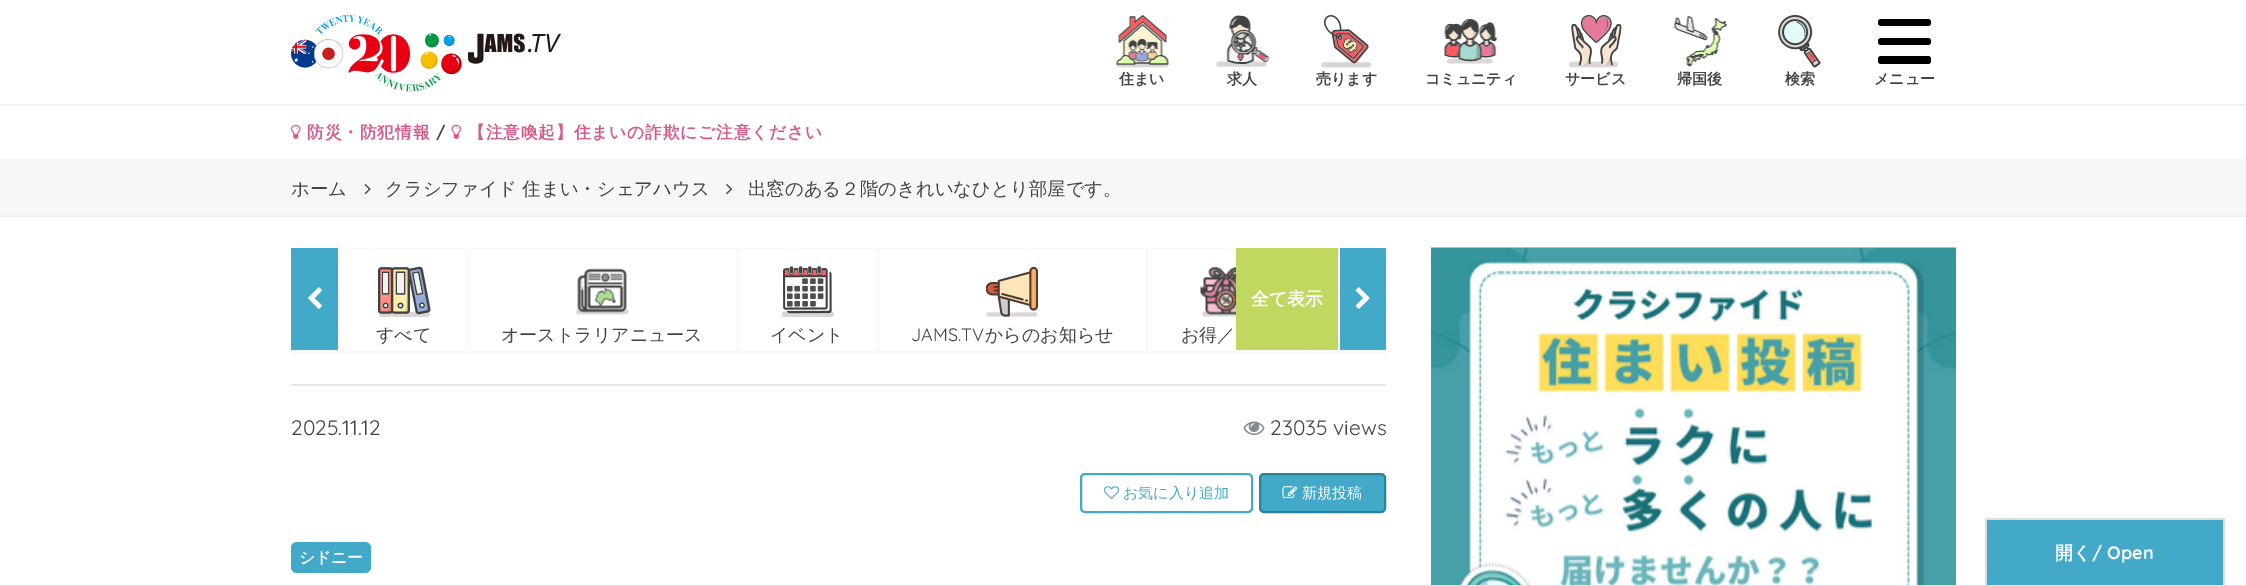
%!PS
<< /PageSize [2246 586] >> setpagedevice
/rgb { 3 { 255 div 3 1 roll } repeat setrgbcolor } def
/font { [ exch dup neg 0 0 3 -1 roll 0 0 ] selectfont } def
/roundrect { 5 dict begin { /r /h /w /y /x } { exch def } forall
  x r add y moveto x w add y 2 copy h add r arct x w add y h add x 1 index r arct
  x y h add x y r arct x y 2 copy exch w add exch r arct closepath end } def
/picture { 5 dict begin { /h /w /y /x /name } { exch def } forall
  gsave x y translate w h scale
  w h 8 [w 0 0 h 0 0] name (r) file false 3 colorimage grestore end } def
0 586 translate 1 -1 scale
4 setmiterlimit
255 255 255 rgb
0 0 2246 586 rectfill
241 241 245 rgb
0 104 2246 2 rectfill
(img/1.rgb) 291 15 270 77 picture
(img/2.rgb) 1116 15 53 53 picture
(img/3.rgb) 1216 15 54 52 picture
(img/4.rgb) 1321 15 51 53 picture
(img/5.rgb) 1444 19 54 45 picture
(img/6.rgb) 1569 15 53 53 picture
(img/7.rgb) 1674 16 53 51 picture
(img/8.rgb) 1778 15 43 53 picture
0 0 0 rgb
1878 19 53 7 3 roundrect fill
1878 38 53 7 3 roundrect fill
1878 56 53 8 3 roundrect fill
(img/9.rgb) 291 124 10 16 picture
(img/10.rgb) 451 124 11 16 picture
247 247 249 rgb
0 159 2246 56 rectfill
241 241 245 rgb
0 215 2246 2 rectfill
(img/11.rgb) 364 184 7 11 picture
(img/12.rgb) 726 184 6 11 picture
247 247 249 rgb
2 setlinewidth
292 249 1093 103 rectstroke
67 169 200 rgb
291 248 47 102 rectfill
(img/13.rgb) 308 287 14 22 picture
[
  [1148 249 156 1 255 255 255]
  [1236 248 102 102 192 216 96]
  [1340 248 46 102 67 169 200]
] { aload pop rgb rectfill } forall
(img/14.rgb) 1355 287 15 22 picture
255 255 255 rgb
341 249 126 1 rectfill
247 247 249 rgb
467 249 1 102 rectfill
(img/15.rgb) 378 266 53 51 picture
255 255 255 rgb
468 249 269 1 rectfill
247 247 249 rgb
737 249 1 102 rectfill
(img/16.rgb) 576 268 53 47 picture
255 255 255 rgb
738 249 140 1 rectfill
247 247 249 rgb
878 249 1 102 rectfill
(img/17.rgb) 782 266 52 52 picture
255 255 255 rgb
879 249 267 1 rectfill
247 247 249 rgb
1146 249 2 102 rectfill
(img/18.rgb) 986 266 52 51 picture
1304 350 1 1 rectfill
(img/19.rgb) 1200 266 36 51 picture
230 230 230 rgb
291 384 1095 2 rectfill
(img/20.rgb) 1243 421 22 14 picture
67 169 200 rgb
1081 474 171 38 4 roundrect stroke
(img/21.rgb) 1104 486 15 13 picture
1260 474 125 38 4 roundrect gsave fill grestore
45 130 155 rgb
stroke
(img/22.rgb) 1282 486 16 12 picture
67 169 200 rgb
291 542 80 31 6 roundrect fill
(img/23.rgb) 1431 247 525 338 picture
[
  [0 585 2246 1 225 225 225]
  [1987 520 236 65 67 169 200]
  [1985 518 240 2 221 221 221]
  [2223 518 2 67 221 221 221]
  [1985 518 2 67 221 221 221]
] { aload pop rgb rectfill } forall
/WenQuanYiZenHei-Bold 15 font
67 67 67 rgb
[
  [(住まい) 1119 84]
  [(求人) 1227 84]
  [(売ります) 1316 84]
  [(コミュニティ) 1425 84]
  [(サービス) 1565 84]
  [(帰国後) 1677 84]
  [(検索) 1785 84]
  [(メニュー) 1874 84]
] { aload pop moveto show } forall
/WenQuanYiZenHei-Bold 16.8 font
211 92 140 rgb
307 138 moveto 0.8 0 (防災・防犯情報) ashow
/Quicksand-Bold 16.8 font
67 67 67 rgb
436 138 moveto 0.8 0 (/) ashow
/WenQuanYiZenHei-Bold 16.8 font
211 92 140 rgb
468 138 moveto 0.8 0 (【注意喚起】住まいの詐欺にご注意ください) ashow
/WenQuanYiZenHei-Medium 18.4 font
67 67 67 rgb
[
  [(ホーム) 291 195]
  [(クラシファイド 住まい・シェアハウス) 385 195]
  [(出窓のある２階のきれいなひとり部屋です。) 748 195]
] { aload pop moveto show } forall
/WenQuanYiZenHei-Bold 18 font
255 255 255 rgb
1251 305 moveto (全て表示) show
/WenQuanYiZenHei-Medium 18 font
67 67 67 rgb
[
  [(すべて) 376 341]
  [(オーストラリアニュース) 501 341]
  [(イベント) 770 341]
] { aload pop moveto show } forall
/Quicksand-Regular 18 font
911 341 moveto (JAMS.TV) show
/WenQuanYiZenHei-Medium 18 font
985 341 moveto (からのお知らせ) show
1181 341 moveto (お得／) show
/Quicksand-Regular 21 font
291 435 moveto (2025.11.12) show
1270 435 moveto (23035 views) show
/WenQuanYiZenHei-Medium 15 font
67 169 200 rgb
1123 498 moveto (お気に入り追加) show
255 255 255 rgb
1302 498 moveto (新規投稿) show
/WenQuanYiZenHei-Bold 15.75 font
299 563 moveto (シドニー) show
/WenQuanYiZenHei-Bold 18 font
2055 559 moveto (開く) show
/Quicksand-Bold 18 font
2092 559 moveto (/ Open) show
showpage
